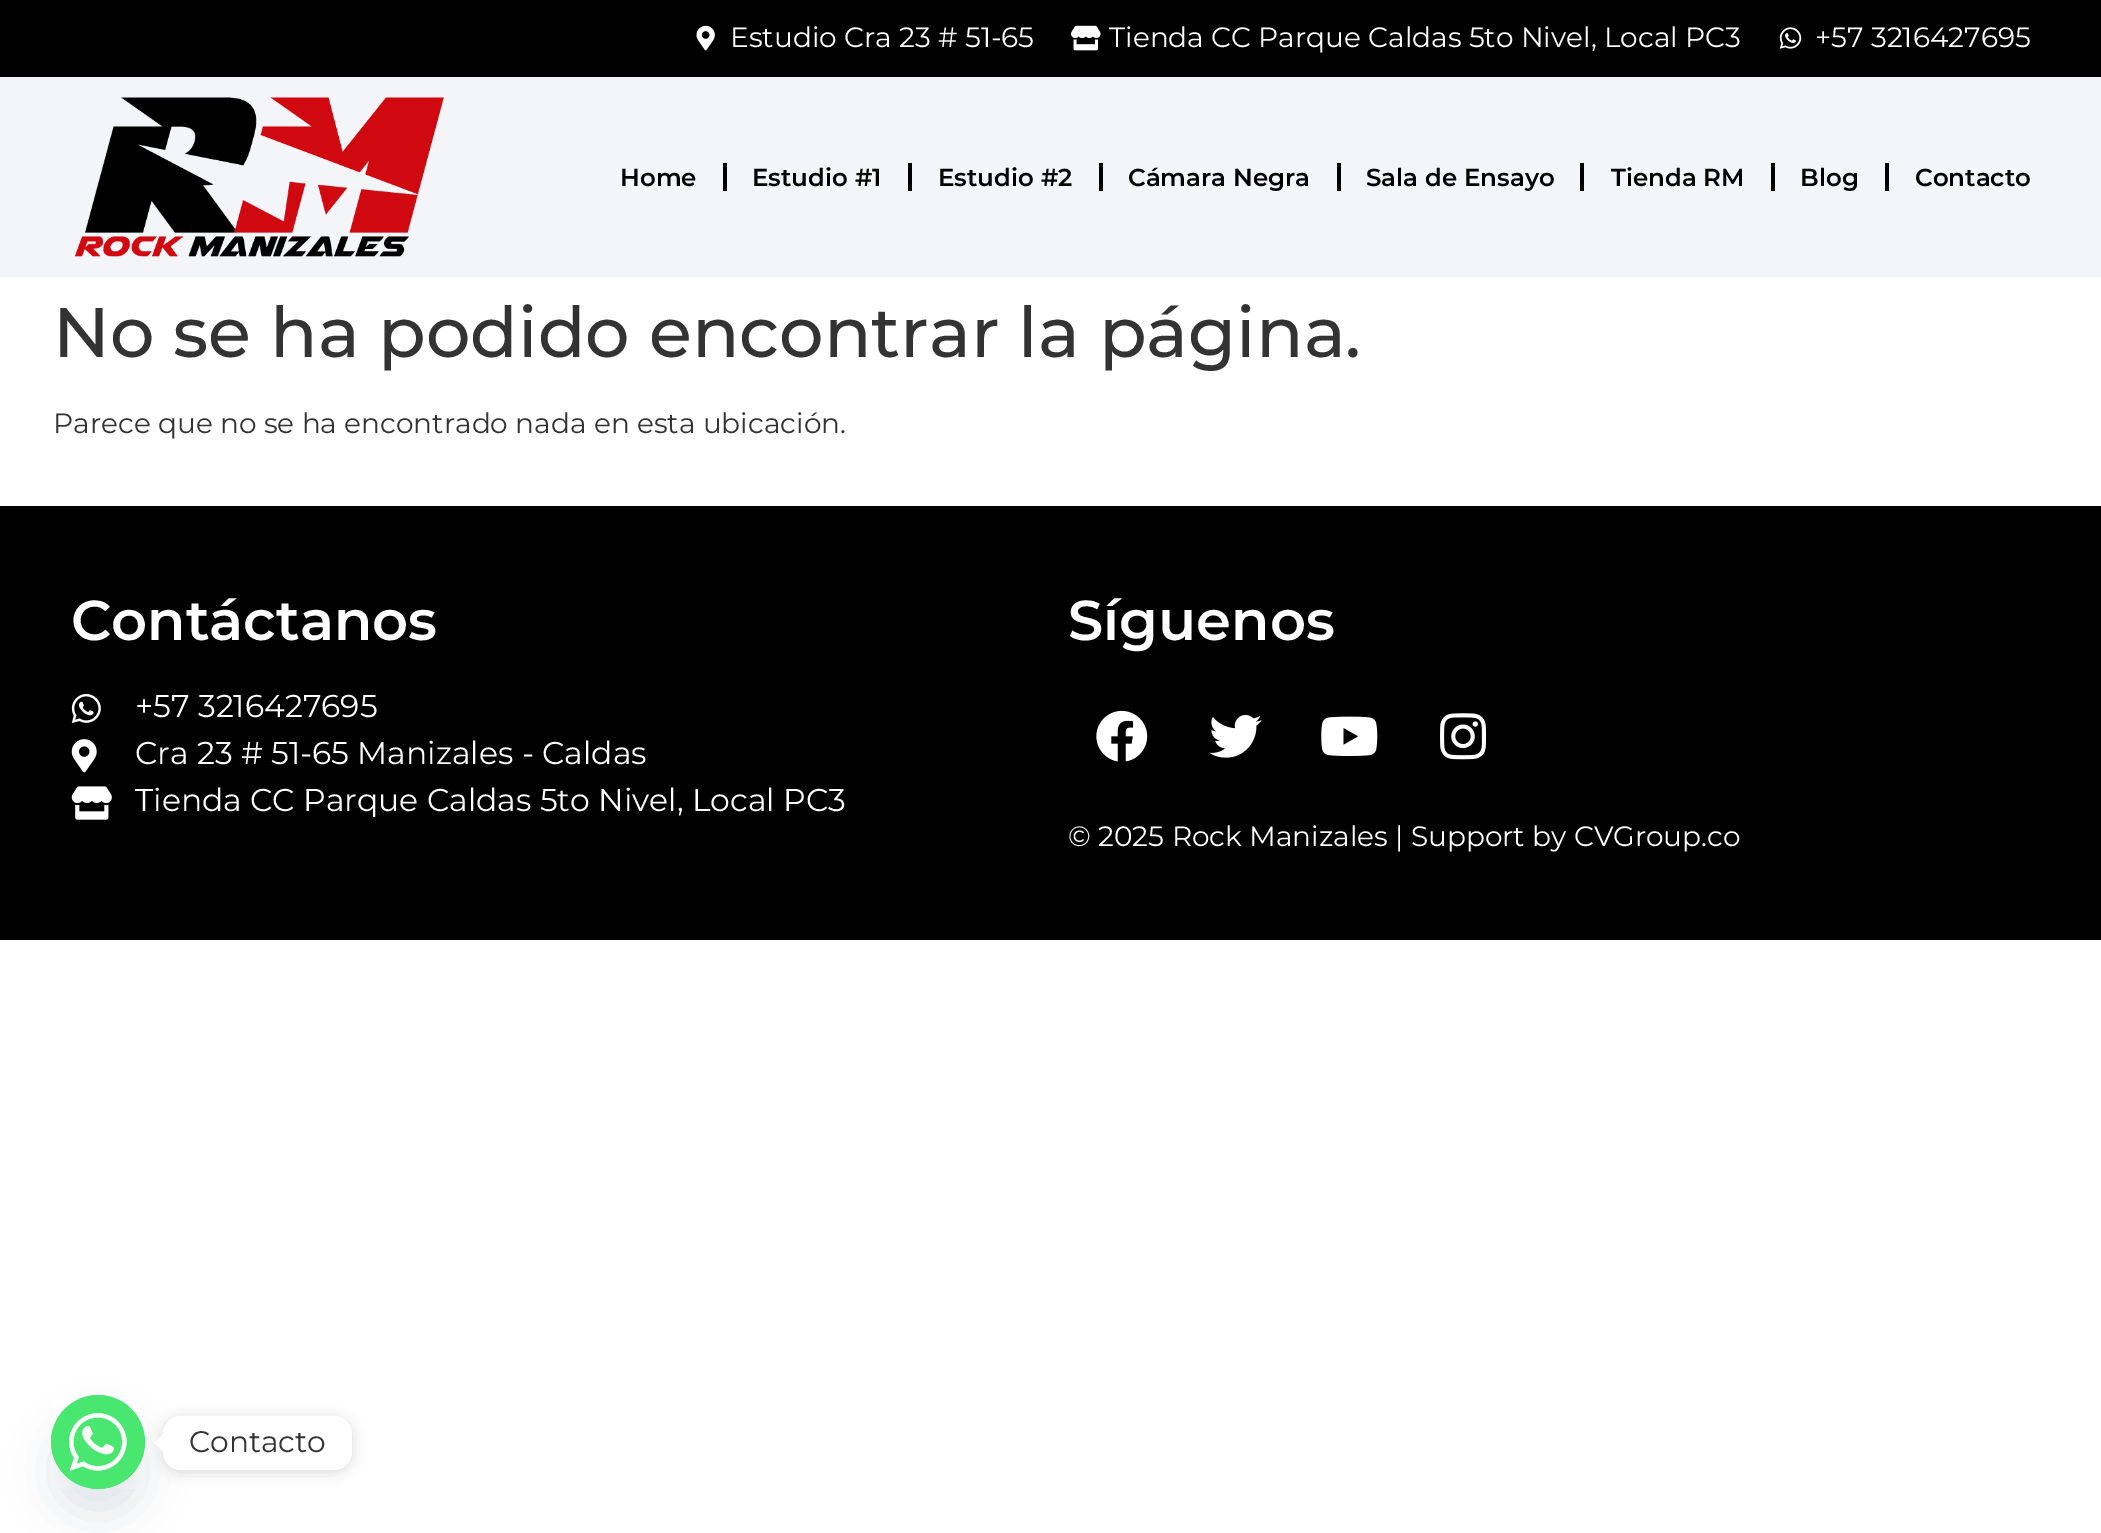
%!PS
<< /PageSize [2101 1533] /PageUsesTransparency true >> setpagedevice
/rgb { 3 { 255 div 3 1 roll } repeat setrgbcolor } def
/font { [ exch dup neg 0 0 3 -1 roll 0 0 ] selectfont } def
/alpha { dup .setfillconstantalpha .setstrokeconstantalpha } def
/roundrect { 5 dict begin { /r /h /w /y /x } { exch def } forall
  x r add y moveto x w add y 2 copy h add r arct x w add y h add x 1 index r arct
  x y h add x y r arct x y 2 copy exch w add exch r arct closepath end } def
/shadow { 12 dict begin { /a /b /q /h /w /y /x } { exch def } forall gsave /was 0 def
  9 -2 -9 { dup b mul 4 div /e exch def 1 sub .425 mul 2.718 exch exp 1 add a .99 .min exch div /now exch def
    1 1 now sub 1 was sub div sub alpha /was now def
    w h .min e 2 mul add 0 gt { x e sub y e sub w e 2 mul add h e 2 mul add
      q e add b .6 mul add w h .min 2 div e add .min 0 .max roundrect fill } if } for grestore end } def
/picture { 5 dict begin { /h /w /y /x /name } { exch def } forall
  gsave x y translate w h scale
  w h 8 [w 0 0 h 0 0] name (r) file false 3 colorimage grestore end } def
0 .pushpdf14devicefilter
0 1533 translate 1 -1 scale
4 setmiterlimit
255 255 255 rgb
0 0 2101 1533 rectfill
0 0 0 rgb
0 0 2101 77 rectfill
(img/1.rgb) 696 25 19 26 picture
(img/2.rgb) 1071 25 30 26 picture
(img/3.rgb) 1779 27 23 22 picture
244 245 249 rgb
0 77 2101 200 rectfill
(img/4.rgb) 74 97 370 160 picture
[
  [723 163 4 28 0 0 0]
  [908 163 4 28 0 0 0]
  [1099 163 4 28 0 0 0]
  [1337 163 4 28 0 0 0]
  [1580 163 4 28 0 0 0]
  [1771 163 4 28 0 0 0]
  [1885 163 4 28 0 0 0]
  [0 506 2101 434 0 0 0]
] { aload pop rgb rectfill } forall
(img/5.rgb) 71 694 30 29 picture
(img/6.rgb) 71 739 26 34 picture
(img/7.rgb) 71 786 41 34 picture
(img/8.rgb) 1096 710 52 52 picture
(img/9.rgb) 1209 715 53 43 picture
(img/10.rgb) 1321 716 57 40 picture
(img/11.rgb) 1440 713 47 47 picture
73 104 126 rgb
51 1423 94 94 47 21 0.16 shadow
(img/12.rgb) 51 1395 94 94 picture
0 0 0 rgb
163 1418 189 54 18 7 0.15 shadow
255 255 255 rgb
163 1416 189 54 18 roundrect fill
163 1434 moveto 163 1451.5 lineto 154 1443 lineto closepath fill
/Montserrat-Regular 28 font
[
  [(Estudio Cra 23 # 51-65) 730 47]
  [(Tienda CC Parque Caldas 5to Nivel, Local PC3) 1109 47]
  [(+57 3216427695) 1815 47]
] { aload pop moveto show } forall
/Montserrat-SemiBold 24.5 font
0 0 0 rgb
[
  [(Home) 620 186]
  [(Estudio #1) 752 186]
  [(Estudio #2) 938 186]
  [(Cámara Negra) 1128 186]
  [(Sala de Ensayo) 1366 186]
  [(Tienda RM) 1611 186]
  [(Blog) 1800 186]
  [(Contacto) 1915 186]
] { aload pop moveto show } forall
/Montserrat-Medium 70 font
51 51 51 rgb
53 357 moveto (No se ha podido encontrar la página.) show
/Montserrat-Regular 28 font
53 433 moveto (Parece que no se ha encontrado nada en esta ubicación.) show
/Montserrat-SemiBold 56 font
255 255 255 rgb
71 640 moveto (Contáctanos) show
/Montserrat-Regular 31.5 font
[
  [(+57 3216427695) 135 717]
  [(Cra 23 # 51-65 Manizales - Caldas) 135 764]
  [(Tienda CC Parque Caldas 5to Nivel, Local PC3) 135 811]
] { aload pop moveto show } forall
/Montserrat-SemiBold 56 font
1068 640 moveto (Síguenos) show
/Montserrat-Regular 28 font
1068 846 moveto (© 2025 Rock Manizales | Support by CVGroup.co) show
/Montserrat-Regular 29.75 font
51 51 51 rgb
189 1452 moveto (Contacto) show
.poppdf14devicefilter showpage
